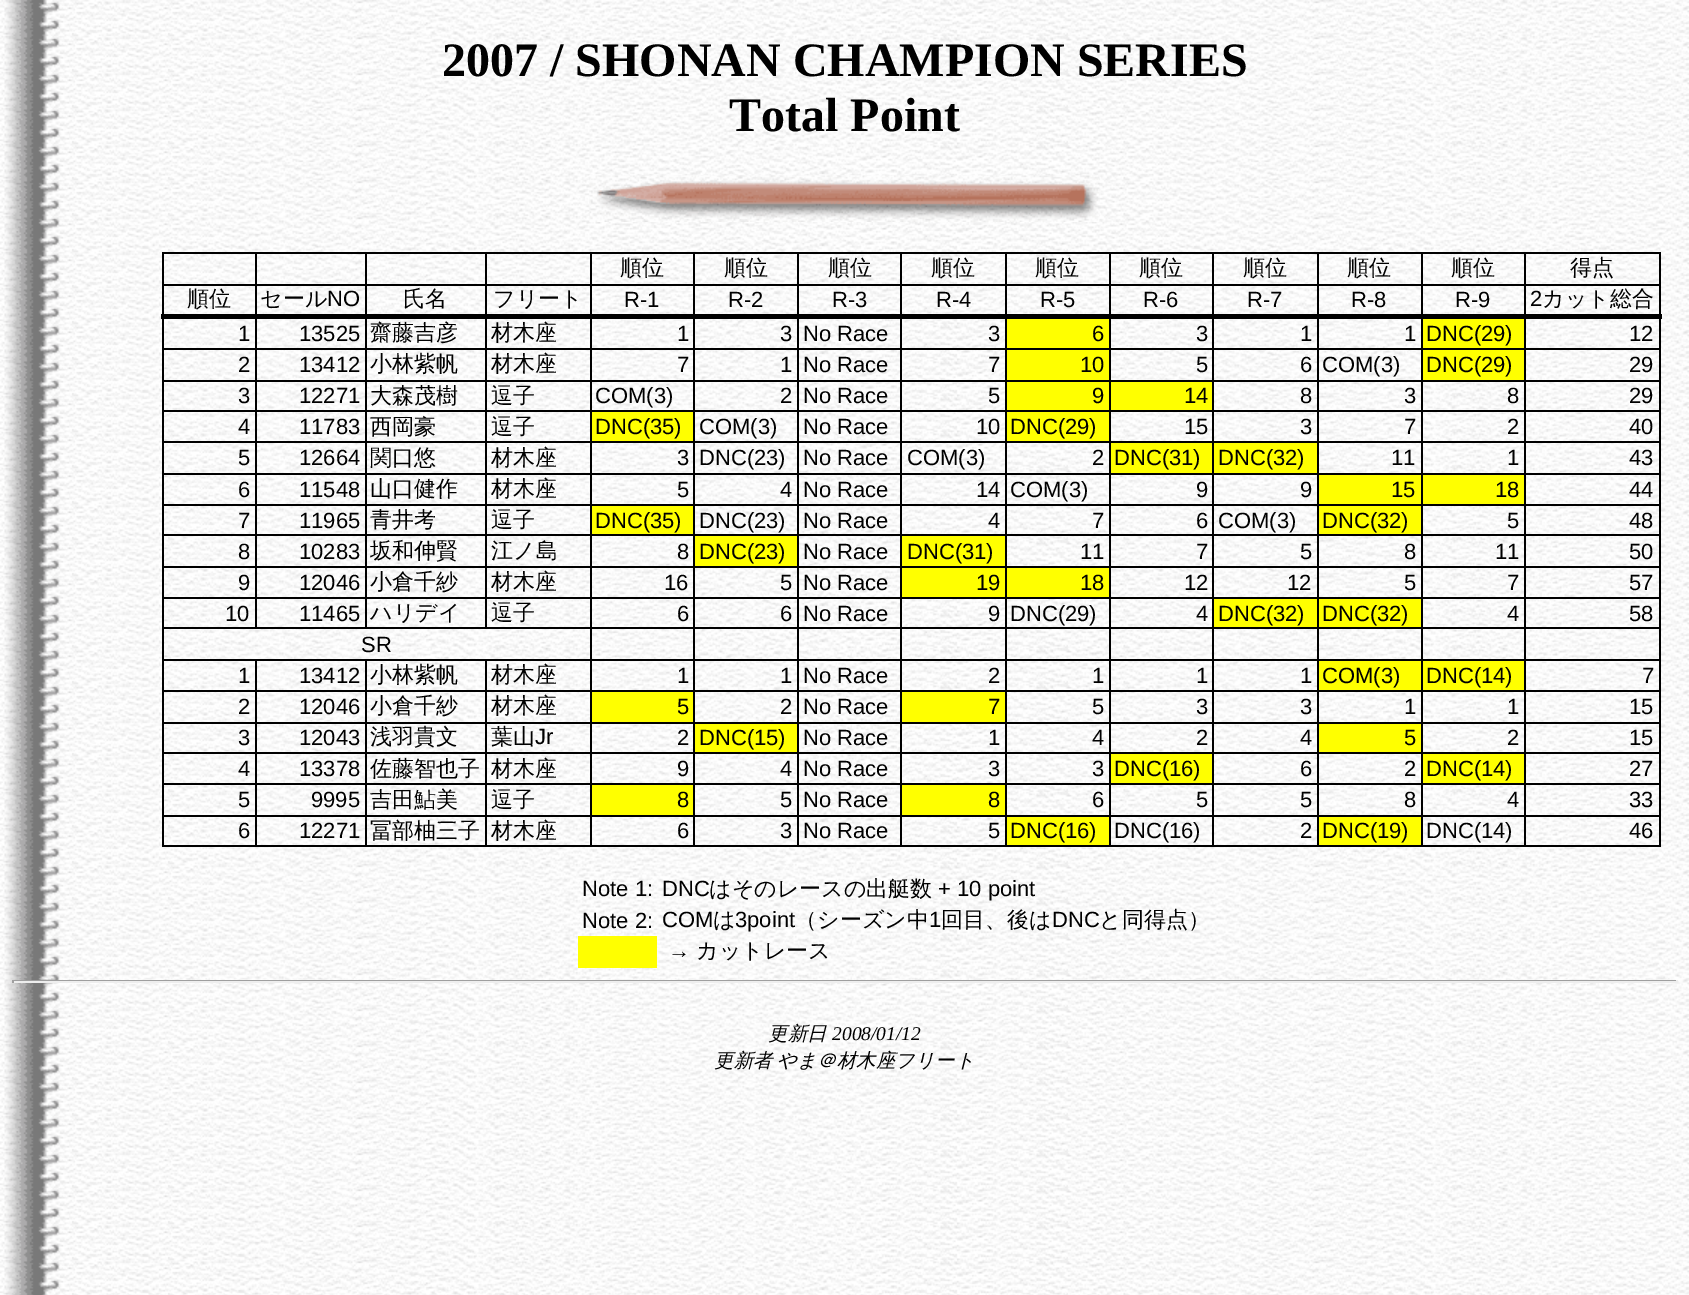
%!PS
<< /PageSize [1689 1295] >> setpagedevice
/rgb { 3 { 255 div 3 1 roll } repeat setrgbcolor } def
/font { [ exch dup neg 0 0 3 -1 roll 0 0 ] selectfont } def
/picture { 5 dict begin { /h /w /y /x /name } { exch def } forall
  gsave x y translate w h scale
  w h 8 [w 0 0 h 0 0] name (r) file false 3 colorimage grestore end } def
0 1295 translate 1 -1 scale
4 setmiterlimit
255 255 255 rgb
0 0 1689 1295 rectfill
(img/1.rgb) 0 0 1689 1295 picture
(img/2.rgb) 589 175 511 47 picture
[
  [1524 252 137 2 0 0 0]
  [1524 284 137 2 0 0 0]
  [1524 348 137 2 0 0 0]
  [1524 380 137 2 0 0 0]
  [1524 410 137 2 0 0 0]
  [1524 441 137 2 0 0 0]
  [1524 473 137 2 0 0 0]
  [1524 504 137 2 0 0 0]
  [1524 534 137 2 0 0 0]
  [1524 566 137 2 0 0 0]
  [1524 597 137 2 0 0 0]
  [1524 627 137 2 0 0 0]
  [1524 659 137 2 0 0 0]
  [1524 690 137 2 0 0 0]
  [1524 722 137 2 0 0 0]
  [1524 752 137 2 0 0 0]
  [1524 783 137 2 0 0 0]
  [1524 815 137 2 0 0 0]
  [1659 815 2 31 0 0 0]
  [1524 845 137 2 0 0 0]
  [1524 815 2 31 0 0 0]
  [1421 815 105 2 0 0 0]
  [1524 783 2 33 0 0 0]
  [1421 783 105 2 0 0 0]
  [1524 752 2 33 0 0 0]
  [1421 752 105 2 0 0 0]
  [1524 722 2 31 0 0 0]
  [1421 722 105 2 0 0 0]
  [1524 690 2 33 0 0 0]
  [1421 690 105 2 0 0 0]
  [1524 659 2 33 0 0 0]
  [1421 659 105 2 0 0 0]
  [1524 627 2 33 0 0 0]
  [1421 627 105 2 0 0 0]
  [1524 597 2 32 0 0 0]
  [1421 597 105 2 0 0 0]
  [1524 566 2 33 0 0 0]
  [1421 566 105 2 0 0 0]
  [1524 534 2 33 0 0 0]
  [1421 534 105 2 0 0 0]
  [1524 504 2 32 0 0 0]
  [1421 504 105 2 0 0 0]
  [1524 473 2 33 0 0 0]
  [1421 473 105 2 0 0 0]
  [1524 441 2 33 0 0 0]
  [1421 441 105 2 0 0 0]
  [1524 410 2 33 0 0 0]
  [1421 410 105 2 0 0 0]
  [1524 380 2 31 0 0 0]
  [1421 380 105 2 0 0 0]
  [1524 348 2 33 0 0 0]
  [1421 348 105 2 0 0 0]
  [1524 315 2 35 0 0 0]
  [1524 284 2 33 0 0 0]
  [1421 284 105 2 0 0 0]
  [1524 252 2 33 0 0 0]
  [1421 252 105 2 0 0 0]
  [1421 845 105 2 0 0 0]
  [1421 815 2 31 0 0 0]
  [1317 815 105 2 0 0 0]
  [1421 783 2 33 0 0 0]
  [1317 783 105 2 0 0 0]
  [1421 752 2 33 0 0 0]
  [1317 752 105 2 0 0 0]
  [1421 722 2 31 0 0 0]
  [1317 722 105 2 0 0 0]
  [1421 690 2 33 0 0 0]
  [1317 690 105 2 0 0 0]
  [1421 659 2 33 0 0 0]
  [1317 659 105 2 0 0 0]
  [1421 627 2 33 0 0 0]
  [1317 627 105 2 0 0 0]
  [1421 597 2 32 0 0 0]
  [1317 597 105 2 0 0 0]
  [1421 566 2 33 0 0 0]
  [1317 566 105 2 0 0 0]
  [1421 534 2 33 0 0 0]
  [1317 534 105 2 0 0 0]
  [1421 504 2 32 0 0 0]
  [1317 504 105 2 0 0 0]
  [1421 473 2 33 0 0 0]
  [1317 473 105 2 0 0 0]
  [1421 441 2 33 0 0 0]
  [1317 441 105 2 0 0 0]
  [1421 410 2 33 0 0 0]
  [1317 410 105 2 0 0 0]
  [1421 380 2 31 0 0 0]
  [1317 380 105 2 0 0 0]
  [1421 348 2 33 0 0 0]
  [1317 348 105 2 0 0 0]
  [1421 315 2 35 0 0 0]
  [1421 284 2 33 0 0 0]
  [1317 284 105 2 0 0 0]
  [1421 252 2 33 0 0 0]
  [1317 252 105 2 0 0 0]
  [1317 845 105 2 0 0 0]
  [1317 815 2 31 0 0 0]
  [1212 815 107 2 0 0 0]
  [1317 783 2 33 0 0 0]
  [1212 783 107 2 0 0 0]
  [1317 752 2 33 0 0 0]
  [1212 752 107 2 0 0 0]
  [1317 722 2 31 0 0 0]
  [1212 722 107 2 0 0 0]
  [1317 690 2 33 0 0 0]
  [1212 690 107 2 0 0 0]
  [1317 659 2 33 0 0 0]
  [1212 659 107 2 0 0 0]
  [1317 627 2 33 0 0 0]
  [1212 627 107 2 0 0 0]
  [1317 597 2 32 0 0 0]
  [1212 597 107 2 0 0 0]
  [1317 566 2 33 0 0 0]
  [1212 566 107 2 0 0 0]
  [1317 534 2 33 0 0 0]
  [1212 534 107 2 0 0 0]
  [1317 504 2 32 0 0 0]
  [1212 504 107 2 0 0 0]
  [1317 473 2 33 0 0 0]
  [1212 473 107 2 0 0 0]
  [1317 441 2 33 0 0 0]
  [1212 441 107 2 0 0 0]
  [1317 410 2 33 0 0 0]
  [1212 410 107 2 0 0 0]
  [1317 380 2 31 0 0 0]
  [1212 380 107 2 0 0 0]
  [1317 348 2 33 0 0 0]
  [1212 348 107 2 0 0 0]
  [1317 315 2 35 0 0 0]
  [1317 284 2 33 0 0 0]
  [1212 284 107 2 0 0 0]
  [1317 252 2 33 0 0 0]
  [1212 252 107 2 0 0 0]
  [1212 845 107 2 0 0 0]
  [1212 815 2 31 0 0 0]
  [1109 815 105 2 0 0 0]
  [1212 783 2 33 0 0 0]
  [1109 783 105 2 0 0 0]
  [1212 752 2 33 0 0 0]
  [1109 752 105 2 0 0 0]
  [1212 722 2 31 0 0 0]
  [1109 722 105 2 0 0 0]
  [1212 690 2 33 0 0 0]
  [1109 690 105 2 0 0 0]
  [1212 659 2 33 0 0 0]
  [1109 659 105 2 0 0 0]
  [1212 627 2 33 0 0 0]
  [1109 627 105 2 0 0 0]
  [1212 597 2 32 0 0 0]
  [1109 597 105 2 0 0 0]
  [1212 566 2 33 0 0 0]
  [1109 566 105 2 0 0 0]
  [1212 534 2 33 0 0 0]
  [1109 534 105 2 0 0 0]
  [1212 504 2 32 0 0 0]
  [1109 504 105 2 0 0 0]
  [1212 473 2 33 0 0 0]
  [1109 473 105 2 0 0 0]
  [1212 441 2 33 0 0 0]
  [1109 441 105 2 0 0 0]
  [1212 410 2 33 0 0 0]
  [1109 410 105 2 0 0 0]
  [1212 380 2 31 0 0 0]
  [1109 380 105 2 0 0 0]
  [1212 348 2 33 0 0 0]
  [1109 348 105 2 0 0 0]
  [1212 315 2 35 0 0 0]
  [1212 284 2 33 0 0 0]
  [1109 284 105 2 0 0 0]
  [1212 252 2 33 0 0 0]
  [1109 252 105 2 0 0 0]
  [1109 845 105 2 0 0 0]
  [1109 815 2 31 0 0 0]
  [1005 815 105 2 0 0 0]
  [1109 783 2 33 0 0 0]
  [1005 783 105 2 0 0 0]
  [1109 752 2 33 0 0 0]
  [1005 752 105 2 0 0 0]
  [1109 722 2 31 0 0 0]
  [1005 722 105 2 0 0 0]
  [1109 690 2 33 0 0 0]
  [1005 690 105 2 0 0 0]
  [1109 659 2 33 0 0 0]
  [1005 659 105 2 0 0 0]
  [1109 627 2 33 0 0 0]
  [1005 627 105 2 0 0 0]
  [1109 597 2 32 0 0 0]
  [1005 597 105 2 0 0 0]
  [1109 566 2 33 0 0 0]
  [1005 566 105 2 0 0 0]
  [1109 534 2 33 0 0 0]
  [1005 534 105 2 0 0 0]
  [1109 504 2 32 0 0 0]
  [1005 504 105 2 0 0 0]
  [1109 473 2 33 0 0 0]
  [1005 473 105 2 0 0 0]
  [1109 441 2 33 0 0 0]
  [1005 441 105 2 0 0 0]
  [1109 410 2 33 0 0 0]
  [1005 410 105 2 0 0 0]
  [1109 380 2 31 0 0 0]
  [1005 380 105 2 0 0 0]
  [1109 348 2 33 0 0 0]
  [1005 348 105 2 0 0 0]
  [1109 315 2 35 0 0 0]
  [1109 284 2 33 0 0 0]
  [1005 284 105 2 0 0 0]
  [1109 252 2 33 0 0 0]
  [1005 252 105 2 0 0 0]
  [1005 845 105 2 0 0 0]
  [1005 815 2 31 0 0 0]
  [900 815 107 2 0 0 0]
  [1005 783 2 33 0 0 0]
  [900 783 107 2 0 0 0]
  [1005 752 2 33 0 0 0]
  [900 752 107 2 0 0 0]
  [1005 722 2 31 0 0 0]
  [900 722 107 2 0 0 0]
  [1005 690 2 33 0 0 0]
  [900 690 107 2 0 0 0]
  [1005 659 2 33 0 0 0]
  [900 659 107 2 0 0 0]
  [1005 627 2 33 0 0 0]
  [900 627 107 2 0 0 0]
  [1005 597 2 32 0 0 0]
  [900 597 107 2 0 0 0]
  [1005 566 2 33 0 0 0]
  [900 566 107 2 0 0 0]
  [1005 534 2 33 0 0 0]
  [900 534 107 2 0 0 0]
  [1005 504 2 32 0 0 0]
  [900 504 107 2 0 0 0]
  [1005 473 2 33 0 0 0]
  [900 473 107 2 0 0 0]
  [1005 441 2 33 0 0 0]
  [900 441 107 2 0 0 0]
  [1005 410 2 33 0 0 0]
  [900 410 107 2 0 0 0]
  [1005 380 2 31 0 0 0]
  [900 380 107 2 0 0 0]
  [1005 348 2 33 0 0 0]
  [900 348 107 2 0 0 0]
  [1005 315 2 35 0 0 0]
  [1005 284 2 33 0 0 0]
  [900 284 107 2 0 0 0]
  [1005 252 2 33 0 0 0]
  [900 252 107 2 0 0 0]
  [900 845 107 2 0 0 0]
  [900 815 2 31 0 0 0]
  [797 815 105 2 0 0 0]
  [900 783 2 33 0 0 0]
  [797 783 105 2 0 0 0]
  [900 752 2 33 0 0 0]
  [797 752 105 2 0 0 0]
  [900 722 2 31 0 0 0]
  [797 722 105 2 0 0 0]
  [900 690 2 33 0 0 0]
  [797 690 105 2 0 0 0]
  [900 659 2 33 0 0 0]
  [797 659 105 2 0 0 0]
  [900 627 2 33 0 0 0]
  [797 627 105 2 0 0 0]
  [900 597 2 32 0 0 0]
  [797 597 105 2 0 0 0]
  [900 566 2 33 0 0 0]
  [797 566 105 2 0 0 0]
  [900 534 2 33 0 0 0]
  [797 534 105 2 0 0 0]
  [900 504 2 32 0 0 0]
  [797 504 105 2 0 0 0]
  [900 473 2 33 0 0 0]
  [797 473 105 2 0 0 0]
  [900 441 2 33 0 0 0]
  [797 441 105 2 0 0 0]
  [900 410 2 33 0 0 0]
  [797 410 105 2 0 0 0]
  [900 380 2 31 0 0 0]
  [797 380 105 2 0 0 0]
  [900 348 2 33 0 0 0]
  [797 348 105 2 0 0 0]
  [900 315 2 35 0 0 0]
  [900 284 2 33 0 0 0]
  [797 284 105 2 0 0 0]
  [900 252 2 33 0 0 0]
  [797 252 105 2 0 0 0]
  [797 845 105 2 0 0 0]
  [797 815 2 31 0 0 0]
  [693 815 105 2 0 0 0]
  [797 783 2 33 0 0 0]
  [693 783 105 2 0 0 0]
  [797 752 2 33 0 0 0]
  [693 752 105 2 0 0 0]
  [797 722 2 31 0 0 0]
  [693 722 105 2 0 0 0]
  [797 690 2 33 0 0 0]
  [693 690 105 2 0 0 0]
  [797 659 2 33 0 0 0]
  [693 659 105 2 0 0 0]
  [797 627 2 33 0 0 0]
  [693 627 105 2 0 0 0]
  [797 597 2 32 0 0 0]
  [693 597 105 2 0 0 0]
  [797 566 2 33 0 0 0]
  [693 566 105 2 0 0 0]
  [797 534 2 33 0 0 0]
  [693 534 105 2 0 0 0]
  [797 504 2 32 0 0 0]
  [693 504 105 2 0 0 0]
  [797 473 2 33 0 0 0]
  [693 473 105 2 0 0 0]
  [797 441 2 33 0 0 0]
  [693 441 105 2 0 0 0]
  [797 410 2 33 0 0 0]
  [693 410 105 2 0 0 0]
  [797 380 2 31 0 0 0]
  [693 380 105 2 0 0 0]
  [797 348 2 33 0 0 0]
  [693 348 105 2 0 0 0]
  [797 315 2 35 0 0 0]
  [797 284 2 33 0 0 0]
  [693 284 105 2 0 0 0]
  [797 252 2 33 0 0 0]
  [693 252 105 2 0 0 0]
  [693 845 105 2 0 0 0]
  [693 815 2 31 0 0 0]
  [590 815 105 2 0 0 0]
  [693 783 2 33 0 0 0]
  [590 783 105 2 0 0 0]
  [693 752 2 33 0 0 0]
  [590 752 105 2 0 0 0]
  [693 722 2 31 0 0 0]
  [590 722 105 2 0 0 0]
  [693 690 2 33 0 0 0]
  [590 690 105 2 0 0 0]
  [693 659 2 33 0 0 0]
  [590 659 105 2 0 0 0]
  [693 627 2 33 0 0 0]
  [590 627 105 2 0 0 0]
  [693 597 2 32 0 0 0]
  [590 597 105 2 0 0 0]
  [693 566 2 33 0 0 0]
  [590 566 105 2 0 0 0]
  [693 534 2 33 0 0 0]
  [590 534 105 2 0 0 0]
  [693 504 2 32 0 0 0]
  [590 504 105 2 0 0 0]
  [693 473 2 33 0 0 0]
  [590 473 105 2 0 0 0]
  [693 441 2 33 0 0 0]
  [590 441 105 2 0 0 0]
  [693 410 2 33 0 0 0]
  [590 410 105 2 0 0 0]
  [693 380 2 31 0 0 0]
  [590 380 105 2 0 0 0]
  [693 348 2 33 0 0 0]
  [590 348 105 2 0 0 0]
  [693 315 2 35 0 0 0]
  [693 284 2 33 0 0 0]
  [590 284 105 2 0 0 0]
  [693 252 2 33 0 0 0]
  [590 252 105 2 0 0 0]
  [590 845 105 2 0 0 0]
  [590 815 2 31 0 0 0]
  [485 815 106 2 0 0 0]
  [590 783 2 33 0 0 0]
  [485 783 106 2 0 0 0]
  [590 752 2 33 0 0 0]
  [485 752 106 2 0 0 0]
  [590 722 2 31 0 0 0]
  [485 722 106 2 0 0 0]
  [590 690 2 33 0 0 0]
  [485 690 106 2 0 0 0]
  [590 659 2 33 0 0 0]
  [485 659 106 2 0 0 0]
  [590 627 2 33 0 0 0]
  [162 627 429 2 0 0 0]
  [590 597 2 32 0 0 0]
  [485 597 106 2 0 0 0]
  [590 566 2 33 0 0 0]
  [485 566 106 2 0 0 0]
  [590 534 2 33 0 0 0]
  [485 534 106 2 0 0 0]
  [590 504 2 32 0 0 0]
  [485 504 106 2 0 0 0]
  [590 473 2 33 0 0 0]
  [485 473 106 2 0 0 0]
  [590 441 2 33 0 0 0]
  [485 441 106 2 0 0 0]
  [590 410 2 33 0 0 0]
  [485 410 106 2 0 0 0]
  [590 380 2 31 0 0 0]
  [485 380 106 2 0 0 0]
  [590 348 2 33 0 0 0]
  [485 348 106 2 0 0 0]
  [590 315 2 35 0 0 0]
  [590 284 2 33 0 0 0]
  [485 284 106 2 0 0 0]
  [590 252 2 33 0 0 0]
  [485 252 106 2 0 0 0]
  [485 597 2 32 0 0 0]
  [365 597 121 2 0 0 0]
  [485 566 2 33 0 0 0]
  [365 566 121 2 0 0 0]
  [485 534 2 33 0 0 0]
  [365 534 121 2 0 0 0]
  [485 504 2 32 0 0 0]
  [365 504 121 2 0 0 0]
  [485 473 2 33 0 0 0]
  [365 473 121 2 0 0 0]
  [485 441 2 33 0 0 0]
  [365 441 121 2 0 0 0]
  [485 410 2 33 0 0 0]
  [365 410 121 2 0 0 0]
  [485 380 2 31 0 0 0]
  [365 380 121 2 0 0 0]
  [485 348 2 33 0 0 0]
  [365 348 121 2 0 0 0]
  [485 315 2 35 0 0 0]
  [485 284 2 33 0 0 0]
  [365 284 121 2 0 0 0]
  [485 252 2 33 0 0 0]
  [365 252 121 2 0 0 0]
  [365 597 2 32 0 0 0]
  [255 597 111 2 0 0 0]
  [365 566 2 33 0 0 0]
  [255 566 111 2 0 0 0]
  [365 534 2 33 0 0 0]
  [255 534 111 2 0 0 0]
  [365 504 2 32 0 0 0]
  [255 504 111 2 0 0 0]
  [365 473 2 33 0 0 0]
  [255 473 111 2 0 0 0]
  [365 441 2 33 0 0 0]
  [255 441 111 2 0 0 0]
  [365 410 2 33 0 0 0]
  [255 410 111 2 0 0 0]
  [365 380 2 31 0 0 0]
  [255 380 111 2 0 0 0]
  [365 348 2 33 0 0 0]
  [255 348 111 2 0 0 0]
  [365 315 2 35 0 0 0]
  [365 284 2 33 0 0 0]
  [255 284 111 2 0 0 0]
  [365 252 2 33 0 0 0]
  [255 252 111 2 0 0 0]
  [255 597 2 32 0 0 0]
  [162 597 95 2 0 0 0]
  [255 566 2 33 0 0 0]
  [162 566 95 2 0 0 0]
  [255 534 2 33 0 0 0]
  [162 534 95 2 0 0 0]
  [255 504 2 32 0 0 0]
  [162 504 95 2 0 0 0]
  [255 473 2 33 0 0 0]
  [162 473 95 2 0 0 0]
  [255 441 2 33 0 0 0]
  [162 441 95 2 0 0 0]
  [255 410 2 33 0 0 0]
  [162 410 95 2 0 0 0]
  [255 380 2 31 0 0 0]
  [162 380 95 2 0 0 0]
  [255 348 2 33 0 0 0]
  [162 348 95 2 0 0 0]
  [255 315 2 35 0 0 0]
  [255 284 2 33 0 0 0]
  [162 284 95 2 0 0 0]
  [255 252 2 33 0 0 0]
  [162 252 95 2 0 0 0]
  [485 845 106 2 0 0 0]
  [485 815 2 31 0 0 0]
  [365 815 121 2 0 0 0]
  [485 783 2 33 0 0 0]
  [365 783 121 2 0 0 0]
  [485 752 2 33 0 0 0]
  [365 752 121 2 0 0 0]
  [485 722 2 31 0 0 0]
  [365 722 121 2 0 0 0]
  [485 690 2 33 0 0 0]
  [365 690 121 2 0 0 0]
  [485 659 2 33 0 0 0]
  [365 659 121 2 0 0 0]
  [365 845 121 2 0 0 0]
  [365 815 2 31 0 0 0]
  [255 815 111 2 0 0 0]
  [365 783 2 33 0 0 0]
  [255 783 111 2 0 0 0]
  [365 752 2 33 0 0 0]
  [255 752 111 2 0 0 0]
  [365 722 2 31 0 0 0]
  [255 722 111 2 0 0 0]
  [365 690 2 33 0 0 0]
  [255 690 111 2 0 0 0]
  [365 659 2 33 0 0 0]
  [255 659 111 2 0 0 0]
  [255 845 111 2 0 0 0]
  [255 815 2 31 0 0 0]
  [162 815 95 2 0 0 0]
  [255 783 2 33 0 0 0]
  [162 783 95 2 0 0 0]
  [255 752 2 33 0 0 0]
  [162 752 95 2 0 0 0]
  [255 722 2 31 0 0 0]
  [162 722 95 2 0 0 0]
  [255 690 2 33 0 0 0]
  [162 690 95 2 0 0 0]
  [255 659 2 33 0 0 0]
  [162 659 95 2 0 0 0]
  [162 845 95 2 0 0 0]
  [162 815 2 31 0 0 0]
  [162 783 2 33 0 0 0]
  [162 752 2 33 0 0 0]
  [162 722 2 31 0 0 0]
  [162 690 2 33 0 0 0]
  [162 659 2 33 0 0 0]
  [162 627 2 33 0 0 0]
  [162 597 2 32 0 0 0]
  [162 566 2 33 0 0 0]
  [162 534 2 33 0 0 0]
  [162 504 2 32 0 0 0]
  [162 473 2 33 0 0 0]
  [162 441 2 33 0 0 0]
  [162 410 2 33 0 0 0]
  [162 380 2 31 0 0 0]
  [162 315 2 66 0 0 0]
  [162 284 2 33 0 0 0]
  [162 252 2 33 0 0 0]
  [1659 783 2 33 0 0 0]
  [1659 752 2 33 0 0 0]
  [1659 722 2 31 0 0 0]
  [1659 690 2 33 0 0 0]
  [1659 659 2 33 0 0 0]
  [1659 627 2 33 0 0 0]
  [1659 597 2 32 0 0 0]
  [1659 566 2 33 0 0 0]
  [1659 534 2 33 0 0 0]
  [1659 504 2 32 0 0 0]
  [1659 473 2 33 0 0 0]
  [1659 441 2 33 0 0 0]
  [1659 410 2 33 0 0 0]
  [1659 380 2 31 0 0 0]
  [1659 315 2 66 0 0 0]
  [1659 284 2 33 0 0 0]
  [1659 252 2 33 0 0 0]
  [161 314 1501 5 0 0 0]
  [1007 319 102 29 255 255 0]
  [1423 319 101 29 255 255 0]
  [1007 350 102 30 255 255 0]
  [1423 350 101 30 255 255 0]
  [1007 382 102 28 255 255 0]
  [1111 382 101 28 255 255 0]
  [592 412 101 29 255 255 0]
  [1007 412 102 29 255 255 0]
  [1111 443 101 30 255 255 0]
  [1214 443 103 30 255 255 0]
  [1319 475 102 29 255 255 0]
  [1423 475 101 29 255 255 0]
  [592 506 101 28 255 255 0]
  [1319 506 102 28 255 255 0]
  [695 536 102 30 255 255 0]
  [902 536 103 30 255 255 0]
  [902 568 103 29 255 255 0]
  [1007 568 102 29 255 255 0]
  [1214 599 103 28 255 255 0]
  [1319 599 102 28 255 255 0]
  [1319 661 102 29 255 255 0]
  [1423 661 101 29 255 255 0]
  [592 692 101 30 255 255 0]
  [902 692 103 30 255 255 0]
  [695 724 102 28 255 255 0]
  [1319 724 102 28 255 255 0]
  [1111 754 101 29 255 255 0]
  [1423 754 101 29 255 255 0]
  [592 785 101 30 255 255 0]
  [902 785 103 30 255 255 0]
  [1007 817 102 28 255 255 0]
  [1319 817 102 28 255 255 0]
  [578 936 79 32 255 255 0]
  [12 980 1665 1 159 159 159]
  [1676 980 2 3 238 238 238]
  [12 981 1665 2 238 238 238]
  [12 980 2 3 159 159 159]
] { aload pop rgb rectfill } forall
/LiberationSerif-Bold 48 font
0 0 0 rgb
442 76 moveto (2007 / SHONAN CHAMPION SERIES) show
729 131 moveto (Total Point) show
/WenQuanYiZenHei-Medium 22 font
[
  [(順位) 620 275]
  [(順位) 724 275]
  [(順位) 828 275]
  [(順位) 931 275]
  [(順位) 1035 275]
  [(順位) 1139 275]
  [(順位) 1243 275]
  [(順位) 1347 275]
  [(順位) 1451 275]
  [(得点) 1570 275]
  [(順位) 187 306]
  [(セール) 260 306]
] { aload pop moveto show } forall
/LiberationSans-Regular 22 font
327 306 moveto (NO) show
/WenQuanYiZenHei-Medium 22 font
403 306 moveto (氏名) show
493 306 moveto (フリート) show
/LiberationSans-Regular 22 font
[
  [(R-1) 624 307]
  [(R-2) 728 307]
  [(R-3) 832 307]
  [(R-4) 936 307]
  [(R-5) 1040 307]
  [(R-6) 1143 307]
  [(R-7) 1247 307]
  [(R-8) 1351 307]
  [(R-9) 1455 307]
  [(2) 1530 306]
] { aload pop moveto show } forall
/WenQuanYiZenHei-Medium 22 font
1542 306 moveto (カット総合) show
/LiberationSans-Regular 22 font
238 341 moveto (1) show
299 341 moveto (13525) show
/WenQuanYiZenHei-Medium 22 font
370 340 moveto (齋藤吉彦) show
491 340 moveto (材木座) show
/LiberationSans-Regular 22 font
[
  [(1) 677 341]
  [(3) 780 341]
  [(No Race) 803 341]
  [(3) 988 341]
  [(6) 1092 341]
  [(3) 1196 341]
  [(1) 1300 341]
  [(1) 1404 341]
  [(DNC\(29\)) 1426 341]
  [(12) 1629 341]
  [(2) 238 372]
  [(13412) 299 372]
] { aload pop moveto show } forall
/WenQuanYiZenHei-Medium 22 font
370 371 moveto (小林紫帆) show
491 371 moveto (材木座) show
/LiberationSans-Regular 22 font
[
  [(7) 677 372]
  [(1) 780 372]
  [(No Race) 803 372]
  [(7) 988 372]
  [(10) 1080 372]
  [(5) 1196 372]
  [(6) 1300 372]
  [(COM\(3\)) 1322 372]
  [(DNC\(29\)) 1426 372]
  [(29) 1629 372]
  [(3) 238 403]
  [(12271) 299 403]
] { aload pop moveto show } forall
/WenQuanYiZenHei-Medium 22 font
370 403 moveto (大森茂樹) show
491 403 moveto (逗子) show
/LiberationSans-Regular 22 font
[
  [(COM\(3\)) 595 403]
  [(2) 780 403]
  [(No Race) 803 403]
  [(5) 988 403]
  [(9) 1092 403]
  [(14) 1184 403]
  [(8) 1300 403]
  [(3) 1404 403]
  [(8) 1507 403]
  [(29) 1629 403]
  [(4) 238 434]
  [(11783) 299 434]
] { aload pop moveto show } forall
/WenQuanYiZenHei-Medium 22 font
370 434 moveto (西岡豪) show
491 434 moveto (逗子) show
/LiberationSans-Regular 22 font
[
  [(DNC\(35\)) 595 434]
  [(COM\(3\)) 699 434]
  [(No Race) 803 434]
  [(10) 976 434]
  [(DNC\(29\)) 1010 434]
  [(15) 1184 434]
  [(3) 1300 434]
  [(7) 1404 434]
  [(2) 1507 434]
  [(40) 1629 434]
  [(5) 238 465]
  [(12664) 299 465]
] { aload pop moveto show } forall
/WenQuanYiZenHei-Medium 22 font
370 465 moveto (関口悠) show
491 465 moveto (材木座) show
/LiberationSans-Regular 22 font
[
  [(3) 677 465]
  [(DNC\(23\)) 699 465]
  [(No Race) 803 465]
  [(COM\(3\)) 907 465]
  [(2) 1092 465]
  [(DNC\(31\)) 1114 465]
  [(DNC\(32\)) 1218 465]
  [(11) 1391 465]
  [(1) 1507 465]
  [(43) 1629 465]
  [(6) 238 497]
  [(11548) 299 497]
] { aload pop moveto show } forall
/WenQuanYiZenHei-Medium 22 font
370 496 moveto (山口健作) show
491 496 moveto (材木座) show
/LiberationSans-Regular 22 font
[
  [(5) 677 497]
  [(4) 780 497]
  [(No Race) 803 497]
  [(14) 976 497]
  [(COM\(3\)) 1010 497]
  [(9) 1196 497]
  [(9) 1300 497]
  [(15) 1391 497]
  [(18) 1495 497]
  [(44) 1629 497]
  [(7) 238 528]
  [(11965) 299 528]
] { aload pop moveto show } forall
/WenQuanYiZenHei-Medium 22 font
370 527 moveto (青井考) show
491 527 moveto (逗子) show
/LiberationSans-Regular 22 font
[
  [(DNC\(35\)) 595 528]
  [(DNC\(23\)) 699 528]
  [(No Race) 803 528]
  [(4) 988 528]
  [(7) 1092 528]
  [(6) 1196 528]
  [(COM\(3\)) 1218 528]
  [(DNC\(32\)) 1322 528]
  [(5) 1507 528]
  [(48) 1629 528]
  [(8) 238 559]
  [(10283) 299 559]
] { aload pop moveto show } forall
/WenQuanYiZenHei-Medium 22 font
370 558 moveto (坂和伸賢) show
491 558 moveto (江ノ島) show
/LiberationSans-Regular 22 font
[
  [(8) 677 559]
  [(DNC\(23\)) 699 559]
  [(No Race) 803 559]
  [(DNC\(31\)) 907 559]
  [(11) 1080 559]
  [(7) 1196 559]
  [(5) 1300 559]
  [(8) 1404 559]
  [(11) 1495 559]
  [(50) 1629 559]
  [(9) 238 590]
  [(12046) 299 590]
] { aload pop moveto show } forall
/WenQuanYiZenHei-Medium 22 font
370 589 moveto (小倉千紗) show
491 589 moveto (材木座) show
/LiberationSans-Regular 22 font
[
  [(16) 664 590]
  [(5) 780 590]
  [(No Race) 803 590]
  [(19) 976 590]
  [(18) 1080 590]
  [(12) 1184 590]
  [(12) 1287 590]
  [(5) 1404 590]
  [(7) 1507 590]
  [(57) 1629 590]
  [(10) 225 621]
  [(11465) 299 621]
] { aload pop moveto show } forall
/WenQuanYiZenHei-Medium 22 font
370 620 moveto (ハリデイ) show
491 620 moveto (逗子) show
/LiberationSans-Regular 22 font
[
  [(6) 677 621]
  [(6) 780 621]
  [(No Race) 803 621]
  [(9) 988 621]
  [(DNC\(29\)) 1010 621]
  [(4) 1196 621]
  [(DNC\(32\)) 1218 621]
  [(DNC\(32\)) 1322 621]
  [(4) 1507 621]
  [(58) 1629 621]
  [(SR) 361 652]
  [(1) 238 683]
  [(13412) 299 683]
] { aload pop moveto show } forall
/WenQuanYiZenHei-Medium 22 font
370 682 moveto (小林紫帆) show
491 682 moveto (材木座) show
/LiberationSans-Regular 22 font
[
  [(1) 677 683]
  [(1) 780 683]
  [(No Race) 803 683]
  [(2) 988 683]
  [(1) 1092 683]
  [(1) 1196 683]
  [(1) 1300 683]
  [(COM\(3\)) 1322 683]
  [(DNC\(14\)) 1426 683]
  [(7) 1642 683]
  [(2) 238 714]
  [(12046) 299 714]
] { aload pop moveto show } forall
/WenQuanYiZenHei-Medium 22 font
370 713 moveto (小倉千紗) show
491 713 moveto (材木座) show
/LiberationSans-Regular 22 font
[
  [(5) 677 714]
  [(2) 780 714]
  [(No Race) 803 714]
  [(7) 988 714]
  [(5) 1092 714]
  [(3) 1196 714]
  [(3) 1300 714]
  [(1) 1404 714]
  [(1) 1507 714]
  [(15) 1629 714]
  [(3) 238 745]
  [(12043) 299 745]
] { aload pop moveto show } forall
/WenQuanYiZenHei-Medium 22 font
370 744 moveto (浅羽貴文) show
491 744 moveto (葉山) show
/LiberationSans-Regular 22 font
[
  [(Jr) 535 744]
  [(2) 677 745]
  [(DNC\(15\)) 699 745]
  [(No Race) 803 745]
  [(1) 988 745]
  [(4) 1092 745]
  [(2) 1196 745]
  [(4) 1300 745]
  [(5) 1404 745]
  [(2) 1507 745]
  [(15) 1629 745]
  [(4) 238 776]
  [(13378) 299 776]
] { aload pop moveto show } forall
/WenQuanYiZenHei-Medium 22 font
370 776 moveto (佐藤智也子) show
491 776 moveto (材木座) show
/LiberationSans-Regular 22 font
[
  [(9) 677 776]
  [(4) 780 776]
  [(No Race) 803 776]
  [(3) 988 776]
  [(3) 1092 776]
  [(DNC\(16\)) 1114 776]
  [(6) 1300 776]
  [(2) 1404 776]
  [(DNC\(14\)) 1426 776]
  [(27) 1629 776]
  [(5) 238 807]
  [(9995) 311 807]
] { aload pop moveto show } forall
/WenQuanYiZenHei-Medium 22 font
370 807 moveto (吉田鮎美) show
491 807 moveto (逗子) show
/LiberationSans-Regular 22 font
[
  [(8) 677 807]
  [(5) 780 807]
  [(No Race) 803 807]
  [(8) 988 807]
  [(6) 1092 807]
  [(5) 1196 807]
  [(5) 1300 807]
  [(8) 1404 807]
  [(4) 1507 807]
  [(33) 1629 807]
  [(6) 238 838]
  [(12271) 299 838]
] { aload pop moveto show } forall
/WenQuanYiZenHei-Medium 22 font
370 838 moveto (冨部柚三子) show
491 838 moveto (材木座) show
/LiberationSans-Regular 22 font
[
  [(6) 677 838]
  [(3) 780 838]
  [(No Race) 803 838]
  [(5) 988 838]
  [(DNC\(16\)) 1010 838]
  [(DNC\(16\)) 1114 838]
  [(2) 1300 838]
  [(DNC\(19\)) 1322 838]
  [(DNC\(14\)) 1426 838]
  [(46) 1629 838]
  [(Note 1:) 582 896]
  [(DNC) 662 896]
] { aload pop moveto show } forall
/WenQuanYiZenHei-Medium 22 font
709 896 moveto (はそのレースの出艇数) show
/LiberationSans-Regular 22 font
[
  [(+ 10 point) 938 896]
  [(Note 2:) 582 928]
  [(COM) 662 927]
] { aload pop moveto show } forall
/WenQuanYiZenHei-Medium 22 font
713 927 moveto (は) show
/LiberationSans-Regular 22 font
735 927 moveto (3point) show
/WenQuanYiZenHei-Medium 22 font
795 927 moveto (（シーズン中) show
/LiberationSans-Regular 22 font
929 927 moveto (1) show
/WenQuanYiZenHei-Medium 22 font
941 927 moveto (回目、後は) show
/LiberationSans-Regular 22 font
1052 927 moveto (DNC) show
/WenQuanYiZenHei-Medium 22 font
1099 927 moveto (と同得点）) show
/LiberationSans-Regular 22 font
668 958 moveto (→) show
/WenQuanYiZenHei-Medium 22 font
696 958 moveto (カットレース) show
/WenQuanYiZenHei-MediumItalic 19.5 font
768 1040 moveto (更新日) show
/LiberationSerif-Italic 19.5 font
832 1040 moveto (2008/01/12) show
/WenQuanYiZenHei-MediumItalic 19.5 font
714 1067 moveto -1 0 32 (更新者 やま＠材木座フリート) widthshow
showpage
